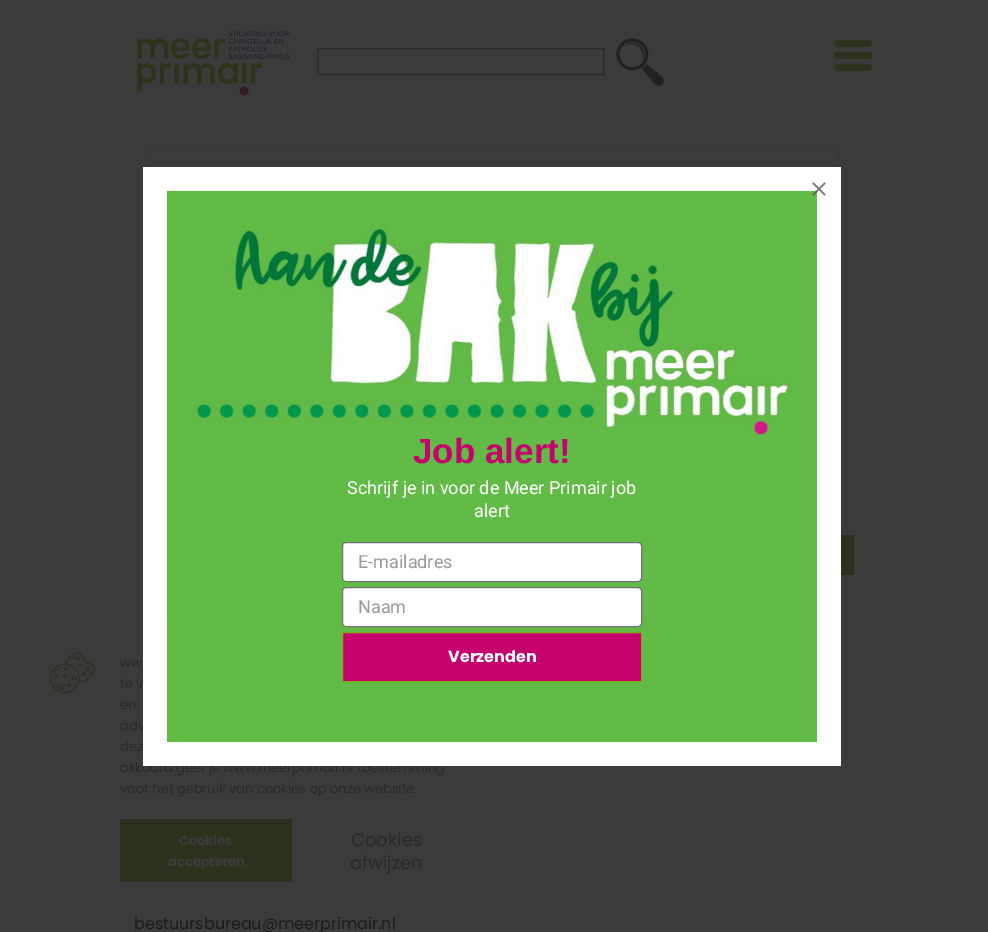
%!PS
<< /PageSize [988 932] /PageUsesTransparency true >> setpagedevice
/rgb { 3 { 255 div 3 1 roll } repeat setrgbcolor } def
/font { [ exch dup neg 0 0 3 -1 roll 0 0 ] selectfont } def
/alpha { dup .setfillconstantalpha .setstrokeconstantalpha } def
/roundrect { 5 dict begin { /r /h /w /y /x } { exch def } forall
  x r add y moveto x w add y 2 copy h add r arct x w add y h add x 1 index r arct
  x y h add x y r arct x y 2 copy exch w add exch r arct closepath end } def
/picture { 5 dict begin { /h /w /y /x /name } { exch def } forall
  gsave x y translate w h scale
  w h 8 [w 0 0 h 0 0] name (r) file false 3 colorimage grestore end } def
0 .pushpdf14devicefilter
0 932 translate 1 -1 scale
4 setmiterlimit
59 59 59 rgb
0 0 988 932 rectfill
(img/2.rgb) 50 652 45 42 picture
42 49 29 rgb
120 819 172 63 rectfill
(img/3.rgb) 137 31 153 65 picture
41 41 41 rgb
317.5 48.5 286 26 rectstroke
(img/4.rgb) 616 38 48 48 picture
42 49 29 rgb
834 52 38 7 3.5 roundrect fill
834 40 38 7 3.5 roundrect fill
834 64 38 7 3.5 roundrect fill
55 55 55 rgb
149.5 146.5 689 273 3.5 roundrect stroke
42 49 29 rgb
841 535 13 40 rectfill
/Poppins-Regular 13 font
41 41 41 rgb
[
  [(ww) 120 667]
  [(te v) 120 688]
  [(en) 120 709]
  [(adv) 120 730]
  [(dez) 120 751]
  [(akkoord geef je www.meerprimair.nl toestemming) 120 772]
] { aload pop moveto show } forall
255 255 255 rgb
143 167 698 599 rectfill
98 187 71 rgb
167 191 650 551 rectfill
(img/1.rgb) 166 190 651 428 picture
0.8 alpha
85 85 85 rgb
1.5 setlinewidth
813 183 moveto 825 195 lineto 825 183 moveto 813 195 lineto stroke
1 alpha
198 0 108 rgb
342.5 632.5 moveto 641.5 632.5 lineto 641.5 681.5 lineto 342.5 681.5 lineto closepath gsave fill grestore
124 173 20 rgb
1 setlinewidth
stroke
/Poppins-Bold 16 font
255 255 255 rgb
448 662 moveto (Verzenden) show
342.5 587.5 299 39 3.5 roundrect gsave fill grestore
112 112 112 rgb
stroke
/Roboto-Regular 18 font
153 153 153 rgb
358 613 moveto (Naam) show
255 255 255 rgb
342.5 542.5 299 39 3.5 roundrect gsave fill grestore
112 112 112 rgb
stroke
153 153 153 rgb
358 568 moveto (E-mailadres) show
255 255 255 rgb
474 517 moveto (alert) show
347 494 moveto (Schrijf je in voor de Meer Primair job) show
/LiberationSans-Bold 35 font
198 0 108 rgb
413 463 moveto (Job alert!) show
/Poppins-Regular 13 font
41 41 41 rgb
120 793 moveto (voor het gebruik van cookies op onze website.) show
/Poppins-Bold 13 font
59 59 59 rgb
179 845 moveto (Cookies) show
168 866 moveto (accepteren) show
/Poppins-Regular 18 font
41 41 41 rgb
351 846 moveto (Cookies) show
350 869 moveto (afwijzen) show
/Poppins-Regular 16 font
26 26 26 rgb
134 929 moveto (bestuursbureau@meerprimair.nl) show
.poppdf14devicefilter showpage
